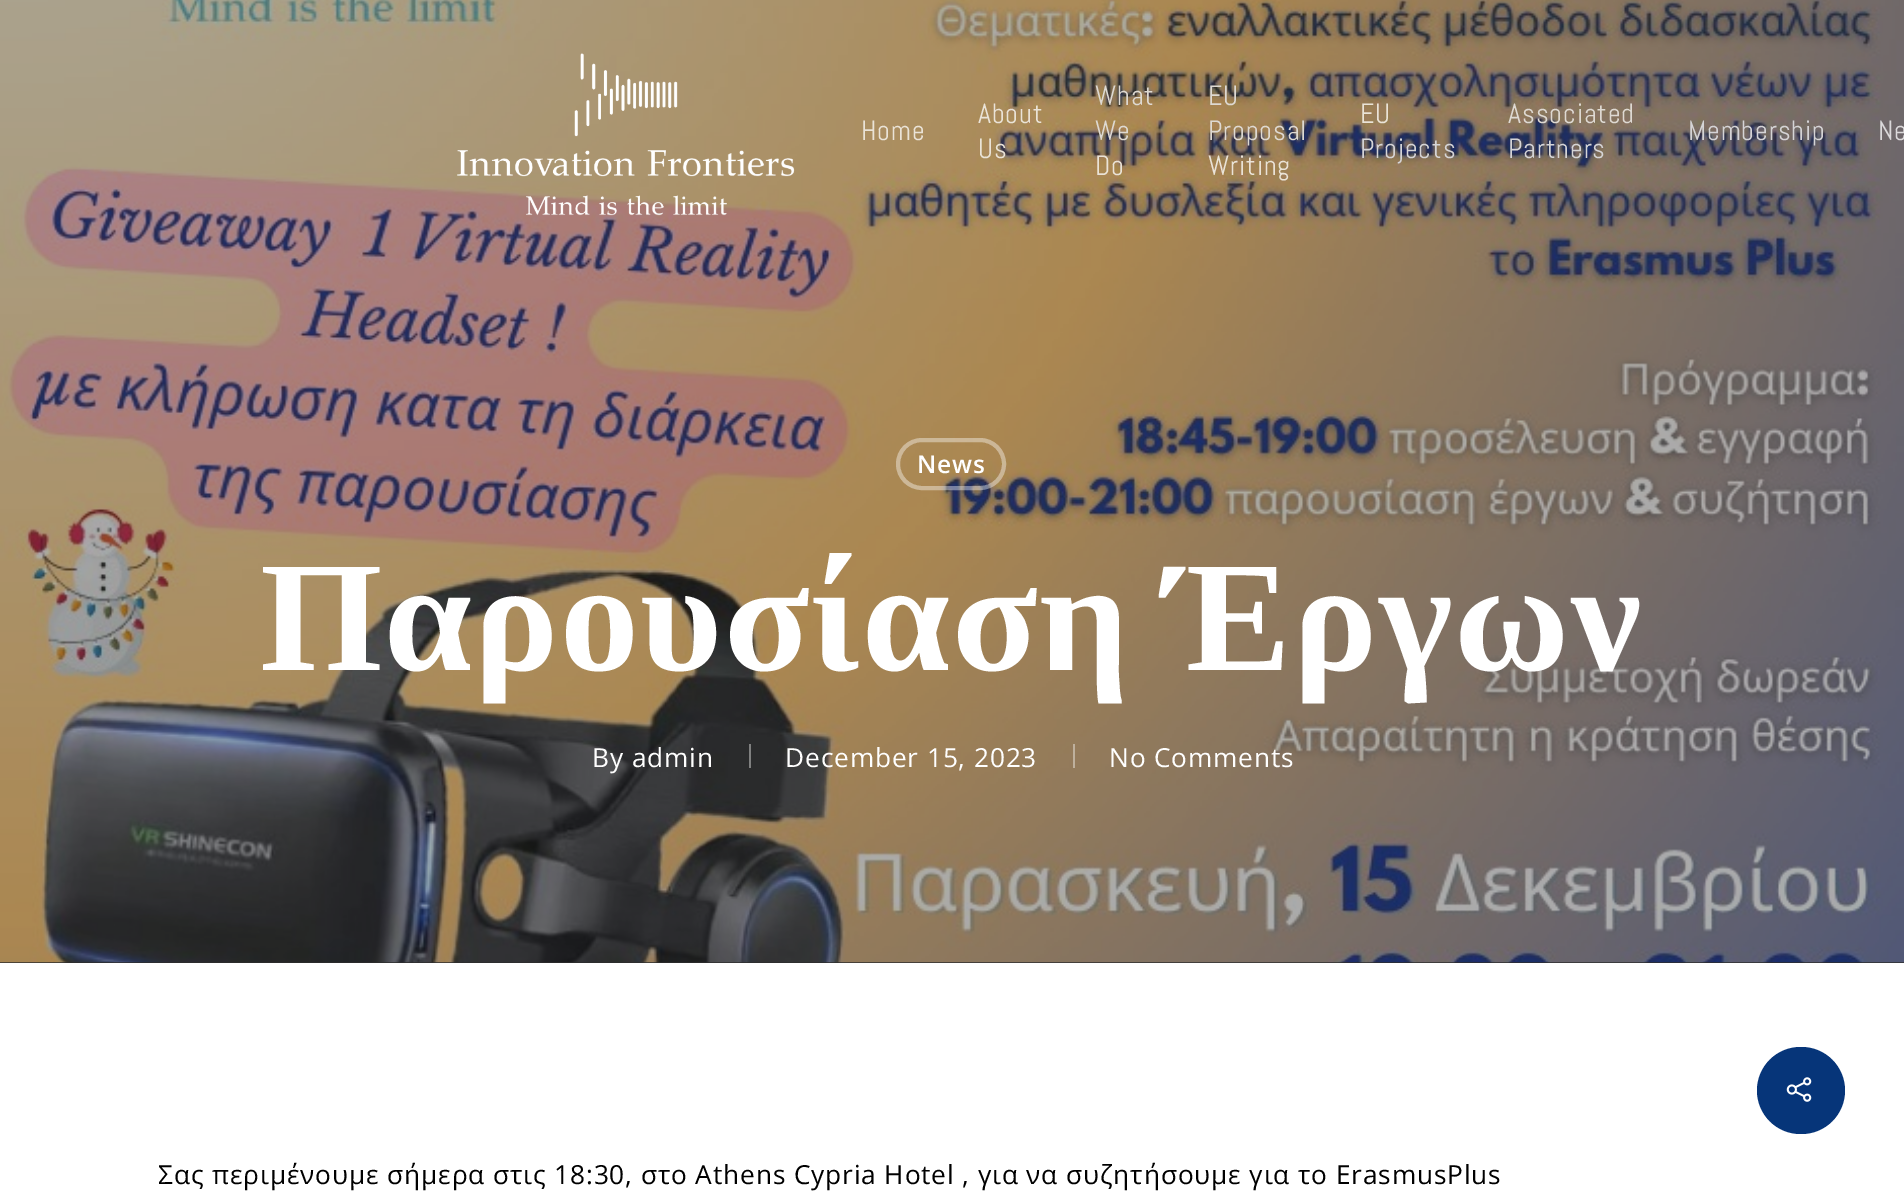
%!PS
<< /PageSize [1904 1193] /PageUsesTransparency true >> setpagedevice
/rgb { 3 { 255 div 3 1 roll } repeat setrgbcolor } def
/font { [ exch dup neg 0 0 3 -1 roll 0 0 ] selectfont } def
/alpha { dup .setfillconstantalpha .setstrokeconstantalpha } def
/roundrect { 5 dict begin { /r /h /w /y /x } { exch def } forall
  x r add y moveto x w add y 2 copy h add r arct x w add y h add x 1 index r arct
  x y h add x y r arct x y 2 copy exch w add exch r arct closepath end } def
/picture { 5 dict begin { /h /w /y /x /name } { exch def } forall
  gsave x y translate w h scale
  w h 8 [w 0 0 h 0 0] name (r) file false 3 colorimage grestore end } def
0 .pushpdf14devicefilter
0 1193 translate 1 -1 scale
4 setmiterlimit
255 255 255 rgb
0 0 1904 1193 rectfill
45 45 45 rgb
0 962 1904 1 rectfill
(img/2.rgb) 0 0 1904 963 picture
(img/1.rgb) 457 53 338 163 picture
0.4 alpha
255 255 255 rgb
4 setlinewidth
898 440 106 48 24 roundrect stroke
1 alpha
127 128 128 rgb
749 744 2 24 rectfill
190 176 157 rgb
1073 744 2 24 rectfill
6 53 121 rgb
1757 1047 88 87 43.5 roundrect fill
(img/3.rgb) 1786 1077 26 25 picture
/Abel-Regular 28 font
234 227 215 rgb
861 140 moveto 0.88 0 (Home) ashow
978 123 moveto 0.88 0 (About) ashow
978 158 moveto 0.88 0 (Us) ashow
222 217 210 rgb
1095 105 moveto 0.88 0 (What) ashow
1095 140 moveto 0.88 0 (We) ashow
234 227 215 rgb
1095 175 moveto 0.88 0 (Do) ashow
222 217 210 rgb
1208 105 moveto 0.88 0 (EU) ashow
1208 140 moveto 0.88 0 (Proposal) ashow
234 227 215 rgb
1208 175 moveto 0.88 0 (Writing) ashow
1360 123 moveto 0.88 0 (EU) ashow
213 212 214 rgb
1360 158 moveto 0.88 0 (Projects) ashow
222 217 210 rgb
1508 123 moveto 0.88 0 (Associated) ashow
213 212 214 rgb
1508 158 moveto 0.88 0 (Partners) ashow
1688 140 moveto 0.88 0 (Membership) ashow
219 217 218 rgb
1878 140 moveto 0.88 0 (Ne) ashow
/OpenSans-SemiBold 24.5 font
255 255 255 rgb
917 473 moveto 0.88 0 (News) ashow
/LiberationSerif-Bold 157.5 font
260 670 moveto -6 0 32 1.75 0 (Παρουσίαση Έργων) awidthshow
/OpenSans-Regular 26.25 font
592 767 moveto 0.88 0 (By admin) ashow
785 767 moveto 0.88 0 (December 15, 2023) ashow
1109 767 moveto 0.88 0 (No Comments) ashow
0 0 0 rgb
158 1184 moveto 0.88 0 (Σας περιμένουμε σήμερα στις 18:30, στο Athens Cypria Hotel , για να συζητήσουμε για το ErasmusPlus) ashow
.poppdf14devicefilter showpage
